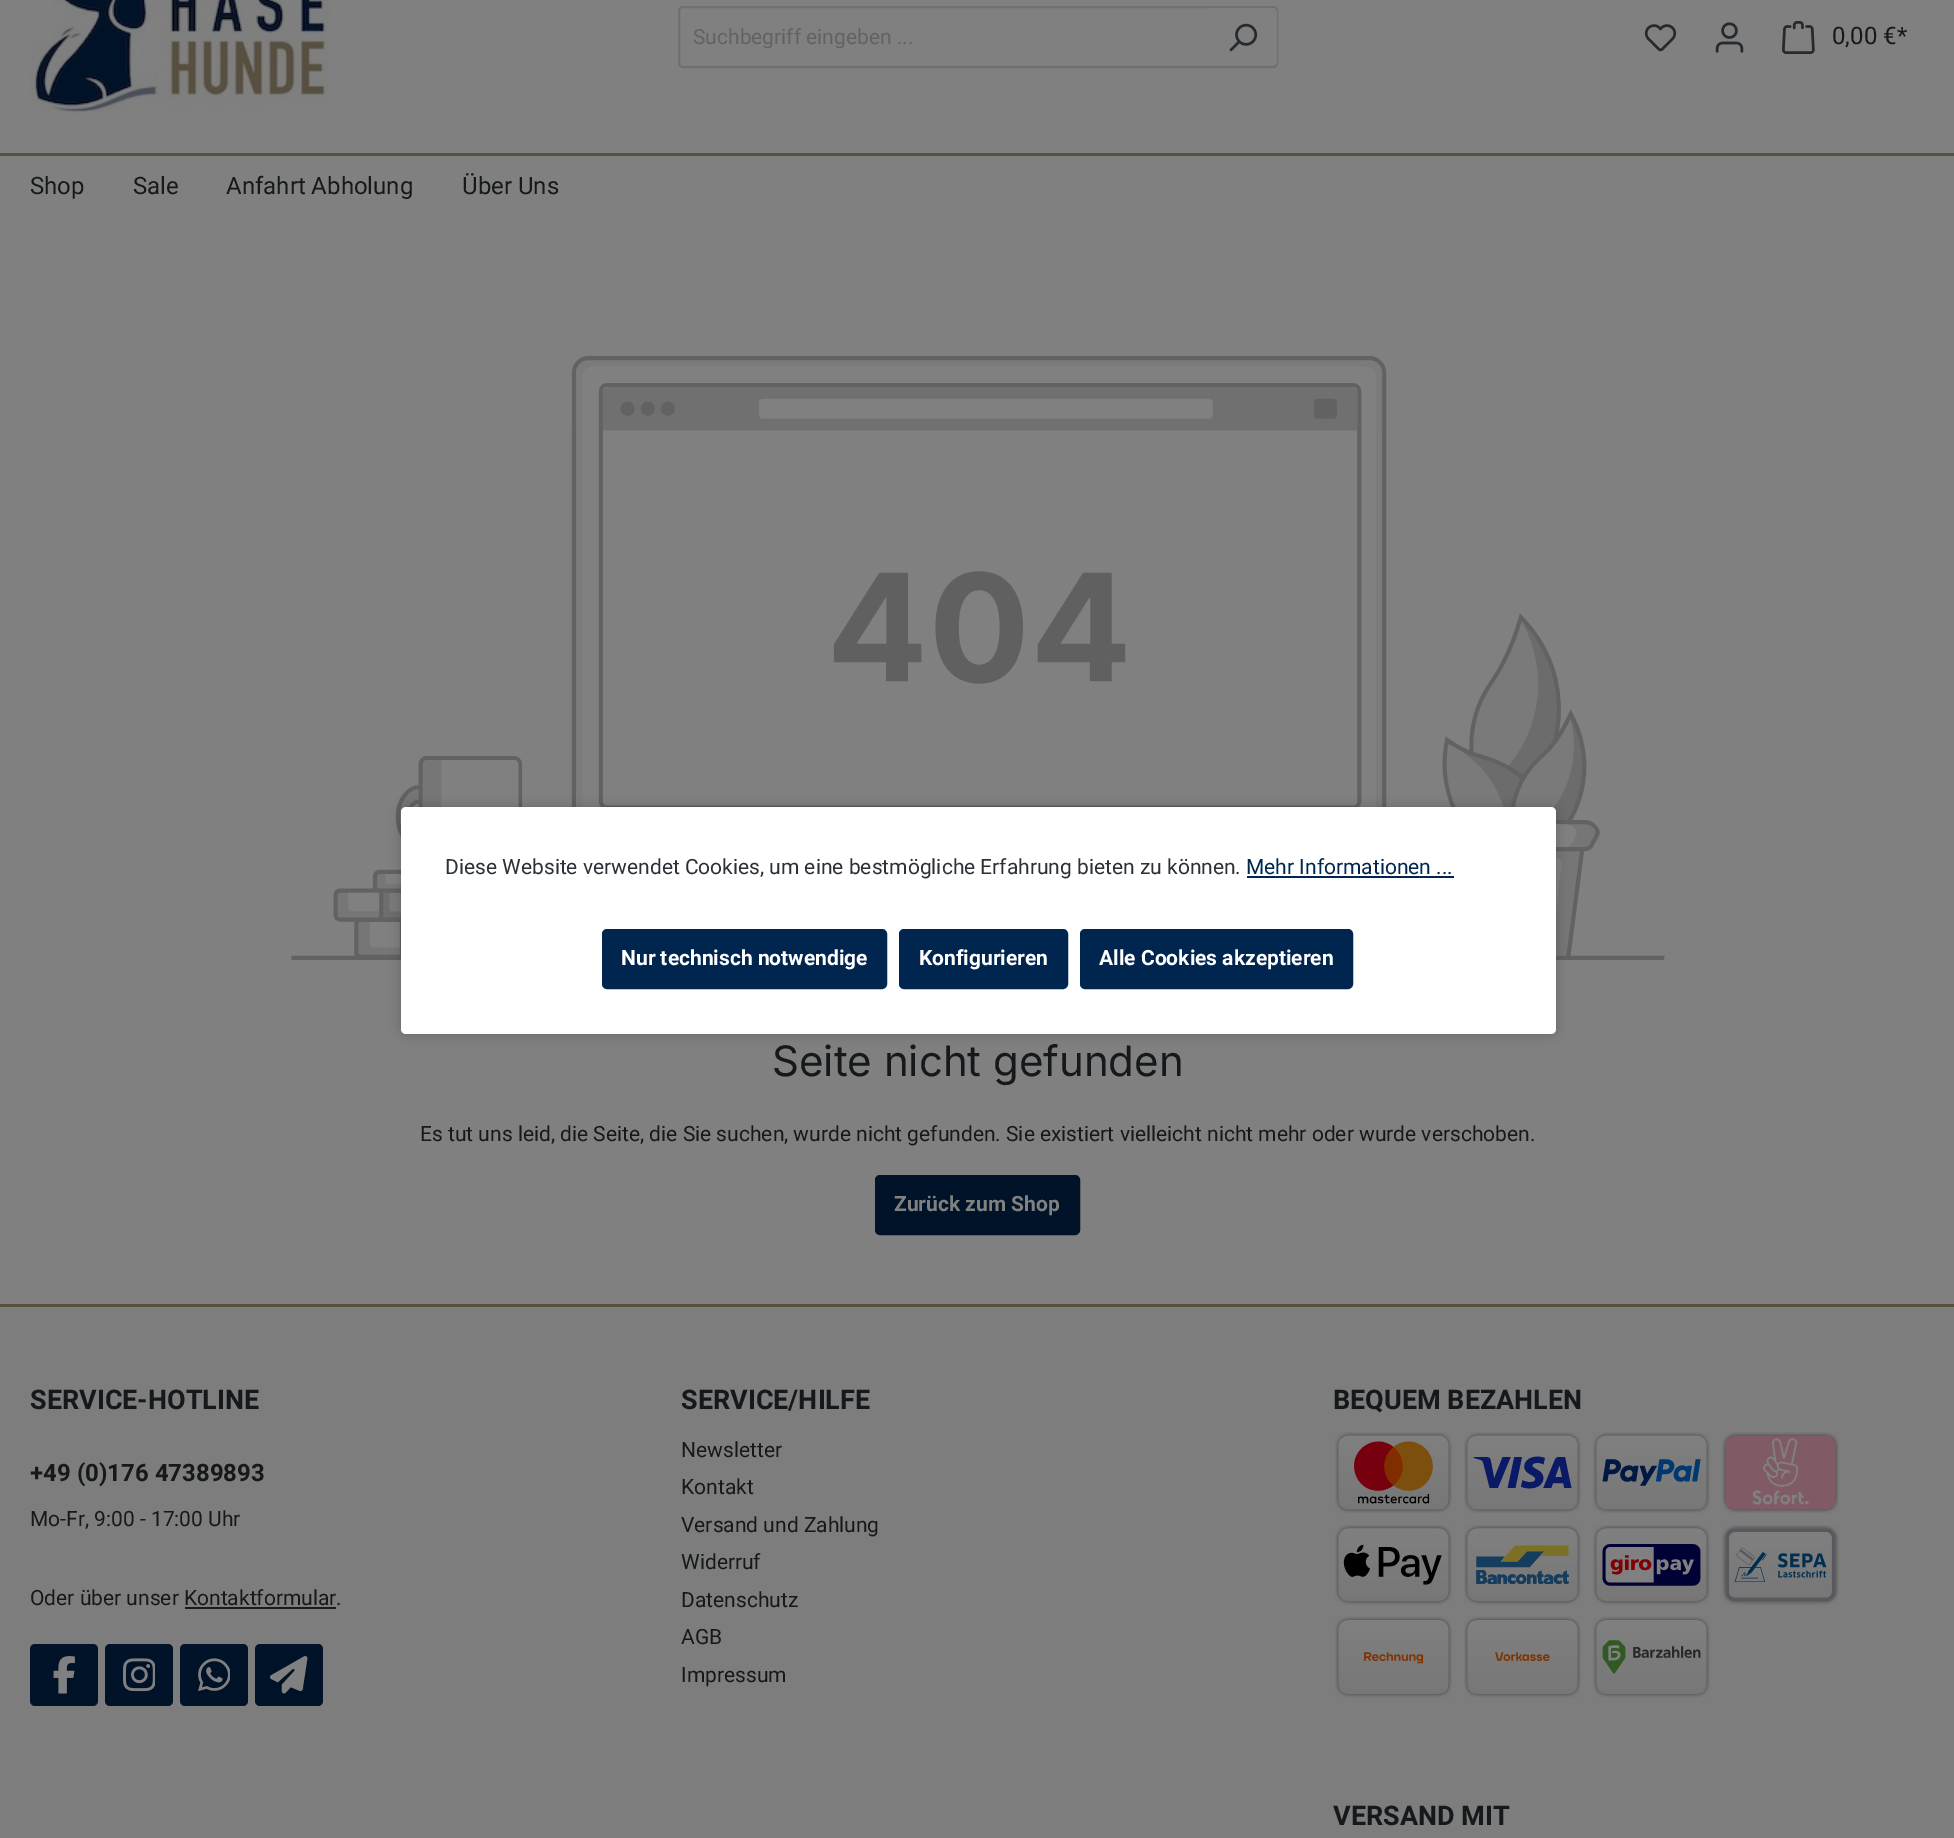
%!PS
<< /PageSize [1954 1838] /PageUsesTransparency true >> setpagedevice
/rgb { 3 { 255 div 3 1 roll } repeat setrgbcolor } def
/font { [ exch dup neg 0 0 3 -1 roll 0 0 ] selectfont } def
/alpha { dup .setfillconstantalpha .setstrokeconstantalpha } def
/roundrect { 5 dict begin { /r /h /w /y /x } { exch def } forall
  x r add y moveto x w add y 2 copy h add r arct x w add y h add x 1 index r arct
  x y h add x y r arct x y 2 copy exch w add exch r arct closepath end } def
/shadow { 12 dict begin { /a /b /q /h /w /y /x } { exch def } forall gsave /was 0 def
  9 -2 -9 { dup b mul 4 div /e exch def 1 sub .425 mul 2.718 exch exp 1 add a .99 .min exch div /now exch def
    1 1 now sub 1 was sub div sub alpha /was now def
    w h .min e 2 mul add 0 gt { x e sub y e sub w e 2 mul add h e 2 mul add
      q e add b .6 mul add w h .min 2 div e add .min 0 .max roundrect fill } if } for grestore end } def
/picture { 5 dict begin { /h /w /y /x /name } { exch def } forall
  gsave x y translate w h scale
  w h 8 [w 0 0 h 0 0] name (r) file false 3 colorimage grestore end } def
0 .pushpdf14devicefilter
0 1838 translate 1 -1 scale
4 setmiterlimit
128 128 128 rgb
0 0 1954 1838 rectfill
88 80 63 rgb
0 153 1954 3 rectfill
(img/1.rgb) 30 0 300 113 picture
111 111 111 rgb
2 setlinewidth
679 7 598 60 4 roundrect stroke
128 128 128 rgb
1208 8 moveto 1272 8 lineto 1275 8 1277 10 1277 13 curveto 1277 61 lineto 1277 64 1275 66 1272 66 curveto 1208 66 lineto closepath fill
(img/2.rgb) 1229 23 29 29 picture
(img/3.rgb) 1644 24 33 28 picture
(img/4.rgb) 1715 22 29 31 picture
(img/5.rgb) 1782 21 33 33 picture
(img/6.rgb) 291 356 1374 604 picture
0 0 0 rgb
401 807 1155 227 5 6 0.2 shadow
255 255 255 rgb
401 807 1155 227 5 roundrect fill
0 37 79 rgb
1247 876 207 2 rectfill
603 930 283 58 4 roundrect gsave fill grestore
stroke
900 930 167 58 4 roundrect gsave fill grestore
stroke
1081 930 271 58 4 roundrect gsave fill grestore
stroke
0 19 40 rgb
876 1176 203 58 4 roundrect gsave fill grestore
stroke
[
  [0 1307 1954 531 125 125 125]
  [0 1304 1954 3 88 80 63]
  [185 1607 151 2 26 26 26]
] { aload pop rgb rectfill } forall
0 19 40 rgb
30 1644 68 62 5 roundrect fill
(img/7.rgb) 53 1656 22 38 picture
105 1644 68 62 5 roundrect fill
(img/8.rgb) 123 1658 32 34 picture
180 1644 68 62 5 roundrect fill
(img/9.rgb) 198 1658 32 34 picture
255 1644 68 62 5 roundrect fill
(img/10.rgb) 270 1656 38 38 picture
(img/11.rgb) 1335 1432 117 81 picture
(img/12.rgb) 1464 1432 117 81 picture
(img/13.rgb) 1593 1432 117 81 picture
(img/14.rgb) 1722 1432 117 81 picture
(img/15.rgb) 1335 1525 117 80 picture
(img/16.rgb) 1464 1525 117 80 picture
(img/17.rgb) 1593 1525 117 80 picture
(img/18.rgb) 1722 1525 117 80 picture
(img/19.rgb) 1335 1616 117 82 picture
(img/20.rgb) 1464 1616 117 82 picture
(img/21.rgb) 1593 1616 117 82 picture
gsave
693 24 503 24 rectclip
/Roboto-Regular 21 font
98 98 98 rgb
693 44 moveto (Suchbegriff eingeben ...) show
grestore
/Roboto-Regular 24 font
22 25 27 rgb
[
  [(0,00 €*) 1832 44]
  [(Shop) 30 194]
  [(Sale) 133 194]
  [(Anfahrt Abholung) 226 194]
  [(Über Uns) 462 194]
] { aload pop moveto show } forall
/Roboto-Regular 21 font
43 49 54 rgb
445 874 moveto (Diese Website verwendet Cookies, um eine bestmögliche Erfahrung bieten zu können.) show
0 37 79 rgb
1246 874 moveto (Mehr Informationen ...) show
/Roboto-Bold 21 font
255 255 255 rgb
[
  [(Nur technisch notwendige) 621 965]
  [(Konfigurieren) 919 965]
  [(Alle Cookies akzeptieren) 1099 965]
] { aload pop moveto show } forall
/Inter-Regular 42 font
22 25 27 rgb
772 1076 moveto (Seite nicht gefunden) show
/Roboto-Regular 21 font
420 1141 moveto (Es tut uns leid, die Seite, die Sie suchen, wurde nicht gefunden. Sie existiert vielleicht nicht mehr oder wurde verschoben.) show
/Roboto-Bold 21 font
128 128 128 rgb
894 1211 moveto (Zurück zum Shop) show
/Roboto-Bold 27 font
22 25 27 rgb
30 1409 moveto (SERVICE-HOTLINE) show
/Roboto-Bold 24 font
30 1481 moveto (+49 \(0\)176 47389893) show
/Roboto-Regular 21 font
30 1526 moveto (Mo-Fr, 9:00 - 17:00 Uhr) show
30 1605 moveto (Oder über unser Kontaktformular.) show
/Roboto-Bold 27 font
681 1409 moveto (SERVICE/HILFE) show
/Roboto-Regular 21 font
[
  [(Newsletter) 681 1457]
  [(Kontakt) 681 1494]
  [(Versand und Zahlung) 681 1532]
  [(Widerruf) 681 1569]
  [(Datenschutz) 681 1607]
  [(AGB) 681 1644]
  [(Impressum) 681 1682]
] { aload pop moveto show } forall
/Roboto-Bold 27 font
1333 1409 moveto (BEQUEM BEZAHLEN) show
1333 1825 moveto (VERSAND MIT) show
.poppdf14devicefilter showpage
